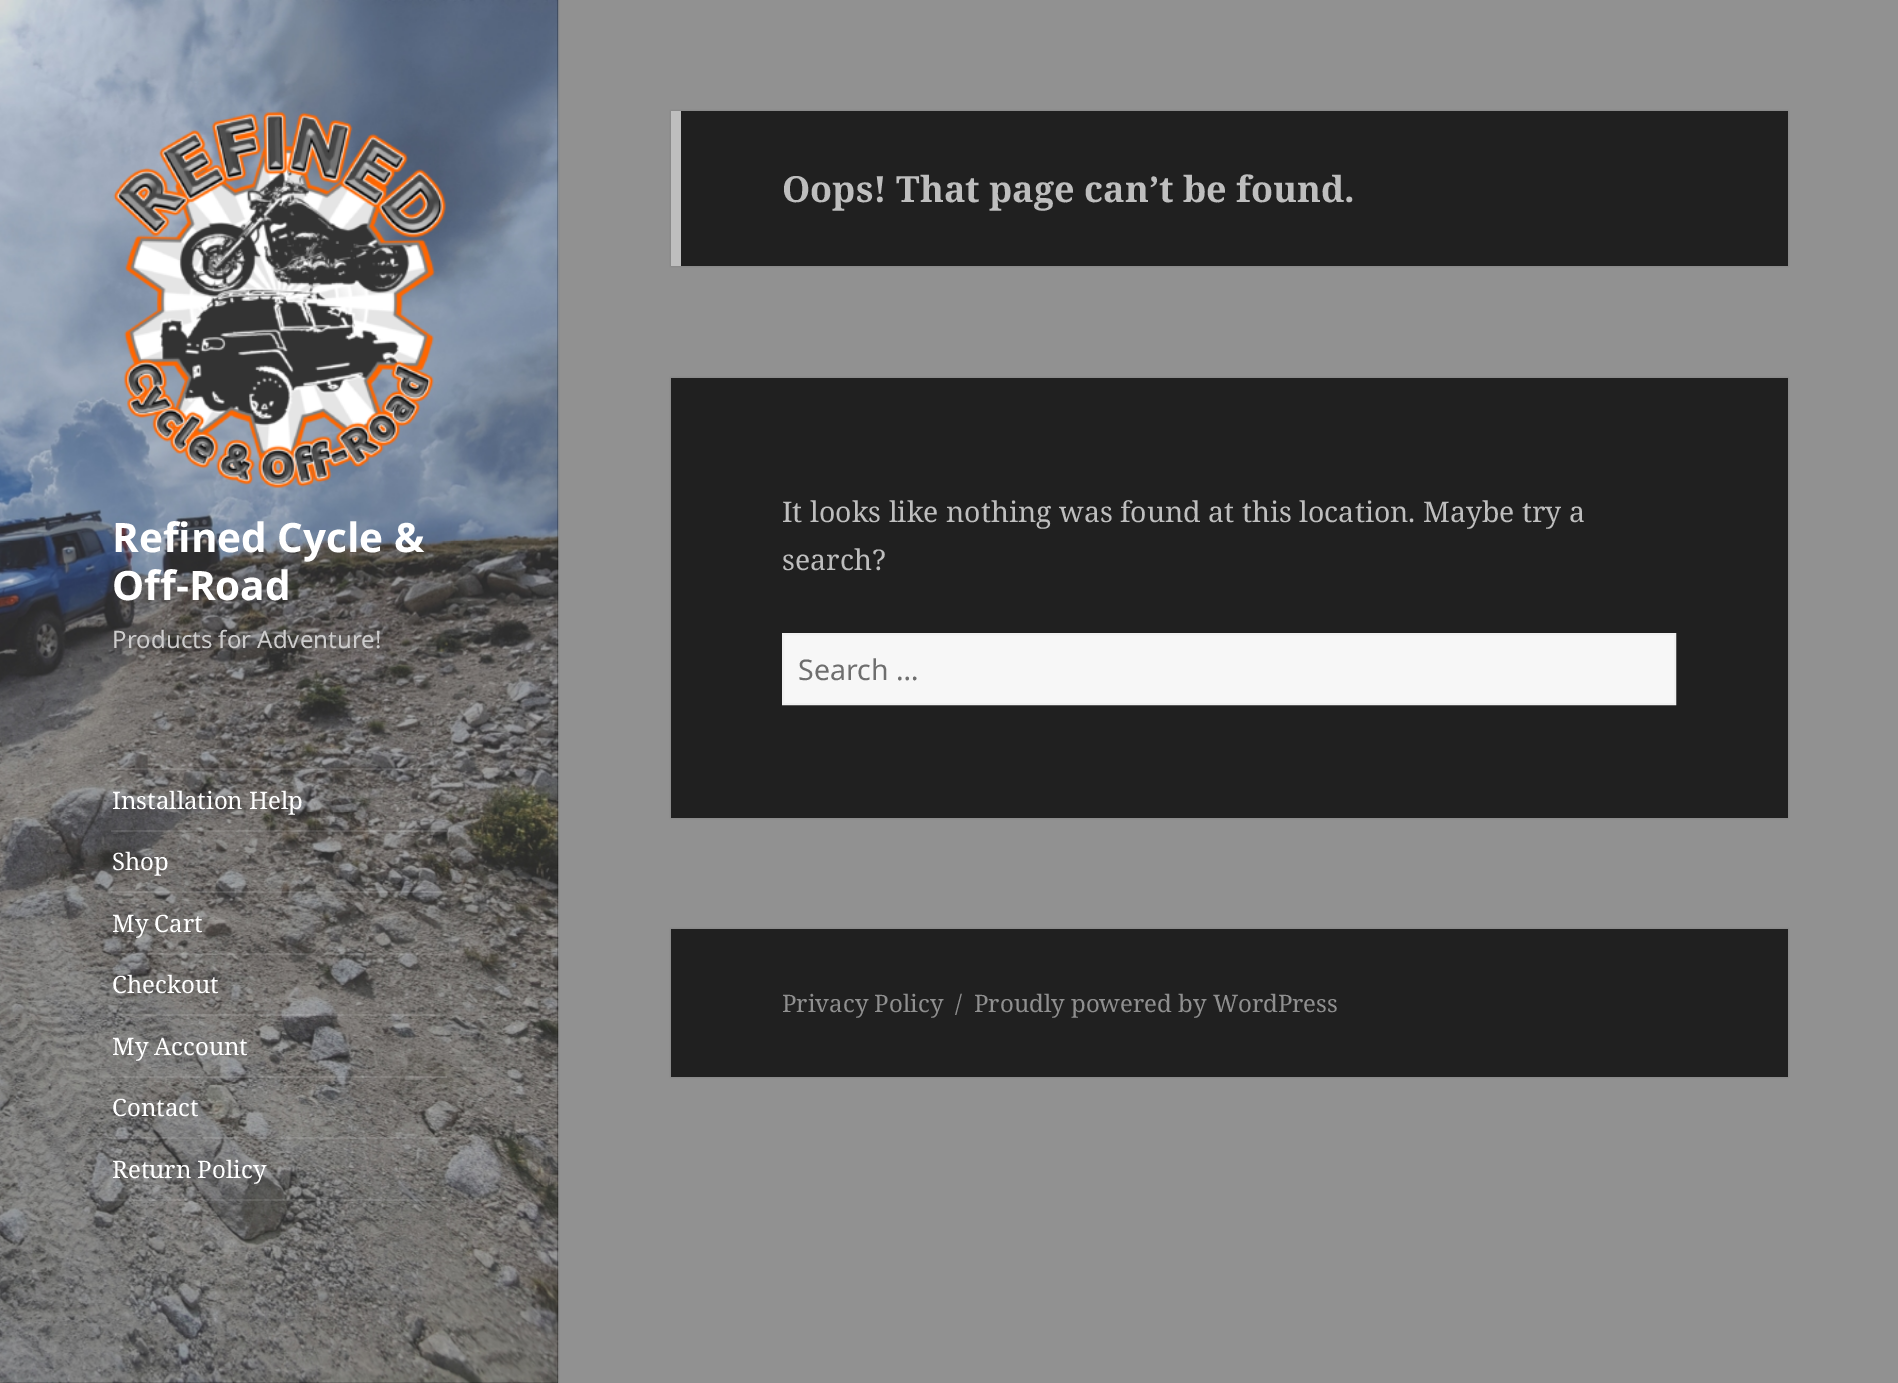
%!PS
<< /PageSize [1898 1383] /PageUsesTransparency true >> setpagedevice
/rgb { 3 { 255 div 3 1 roll } repeat setrgbcolor } def
/font { [ exch dup neg 0 0 3 -1 roll 0 0 ] selectfont } def
/alpha { dup .setfillconstantalpha .setstrokeconstantalpha } def
/roundrect { 5 dict begin { /r /h /w /y /x } { exch def } forall
  x r add y moveto x w add y 2 copy h add r arct x w add y h add x 1 index r arct
  x y h add x y r arct x y 2 copy exch w add exch r arct closepath end } def
/shadow { 12 dict begin { /a /b /q /h /w /y /x } { exch def } forall gsave /was 0 def
  9 -2 -9 { dup b mul 4 div /e exch def 1 sub .425 mul 2.718 exch exp 1 add a .99 .min exch div /now exch def
    1 1 now sub 1 was sub div sub alpha /was now def
    w h .min e 2 mul add 0 gt { x e sub y e sub w e 2 mul add h e 2 mul add
      q e add b .6 mul add w h .min 2 div e add .min 0 .max roundrect fill } if } for grestore end } def
/picture { 5 dict begin { /h /w /y /x /name } { exch def } forall
  gsave x y translate w h scale
  w h 8 [w 0 0 h 0 0] name (r) file false 3 colorimage grestore end } def
0 .pushpdf14devicefilter
0 1383 translate 1 -1 scale
4 setmiterlimit
145 145 145 rgb
0 0 1898 1383 rectfill
0 0 0 rgb
0 0 558 1383 0 1 0.15 shadow
0 0 558 1383 rectfill
(img/1.rgb) 0 0 559 1383 picture
671 111 1117 155 0 1 0.15 shadow
32 32 32 rgb
681 111 1107 155 rectfill
190 190 190 rgb
671 111 10 155 rectfill
0 0 0 rgb
671 378 1117 440 0 1 0.15 shadow
32 32 32 rgb
671 378 1117 440 rectfill
247 247 247 rgb
783 634 moveto 1675 634 lineto 1675 704 lineto 783 704 lineto closepath gsave fill grestore
241 241 241 rgb
2 setlinewidth
stroke
(img/2.rgb) 113 111 333 377 picture
0.1 alpha
[
  [111 768 336 2 255 255 255]
  [111 1199 336 2 255 255 255]
  [111 830 336 2 255 255 255]
  [111 891 336 2 255 255 255]
  [111 953 336 2 255 255 255]
  [111 1014 336 2 255 255 255]
  [111 1076 336 2 255 255 255]
  [111 1137 336 2 255 255 255]
] { aload pop rgb rectfill } forall
1 alpha
0 0 0 rgb
671 929 1117 148 0 1 0.15 shadow
32 32 32 rgb
671 929 1117 148 rectfill
/NotoSerif-Bold 36 font
190 190 190 rgb
782 202 moveto (Oops! That page can’t be found.) show
/NotoSerif-Regular 28.5 font
782 522 moveto (It looks like nothing was found at this location. Maybe try a) show
782 570 moveto (search?) show
/NotoSans-Regular 28.5 font
110 110 110 rgb
798 680 moveto (Search …) show
/NotoSans-Bold 40.5 font
255 255 255 rgb
112 552 moveto (Refined Cycle &) show
112 600 moveto (Off-Road) show
/NotoSans-Regular 24 font
205 204 204 rgb
112 648 moveto (Products for Adventure!) show
/NotoSerif-Regular 24 font
255 255 255 rgb
[
  [(Installation Help) 112 809]
  [(Shop) 112 870]
  [(My Cart) 112 932]
  [(Checkout) 112 993]
  [(My Account) 112 1055]
  [(Contact) 112 1116]
  [(Return Policy) 112 1178]
] { aload pop moveto show } forall
143 143 143 rgb
[
  [(Privacy Policy) 782 1012]
  [(/) 955 1012]
  [(Proudly powered by WordPress) 974 1012]
] { aload pop moveto show } forall
.poppdf14devicefilter showpage
